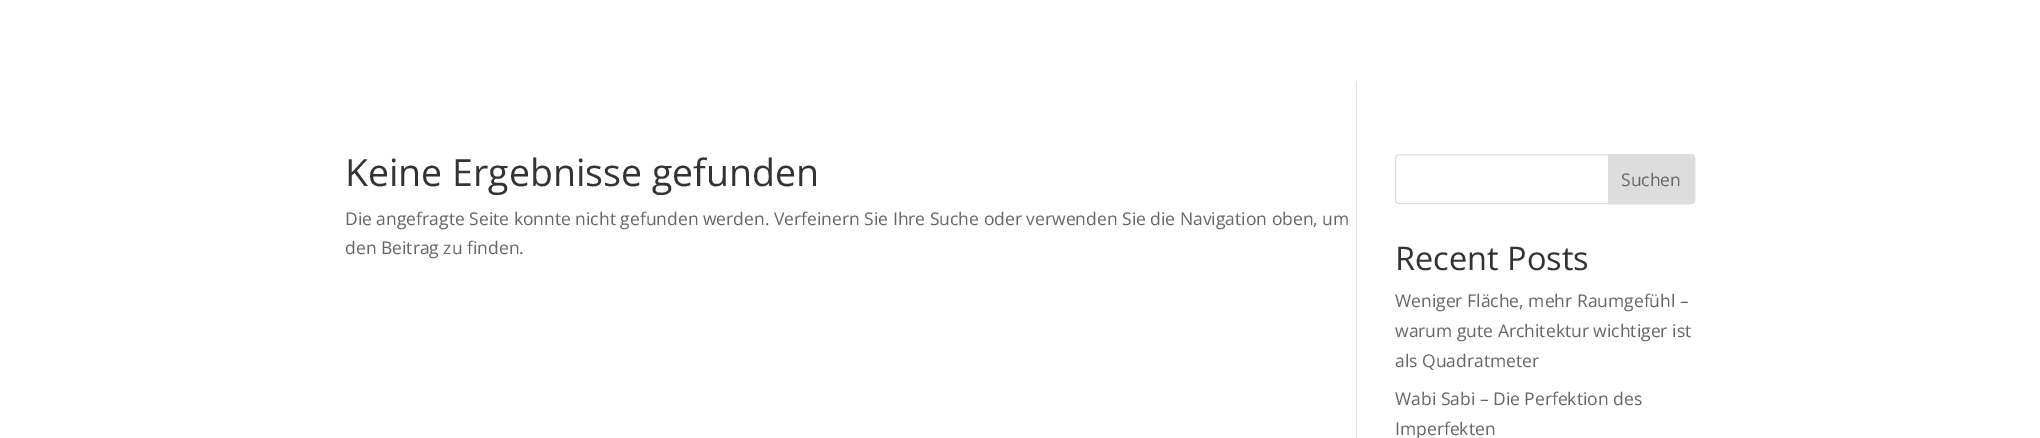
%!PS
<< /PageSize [2040 438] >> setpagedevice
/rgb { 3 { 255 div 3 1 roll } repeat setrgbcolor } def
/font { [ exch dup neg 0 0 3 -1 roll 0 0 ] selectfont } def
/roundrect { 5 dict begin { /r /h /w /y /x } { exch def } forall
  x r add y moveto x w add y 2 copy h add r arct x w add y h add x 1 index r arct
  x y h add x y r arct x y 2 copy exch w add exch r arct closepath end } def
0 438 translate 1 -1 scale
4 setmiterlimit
255 255 255 rgb
0 0 2040 438 rectfill
226 226 226 rgb
1356 81 1 357 rectfill
221 221 221 rgb
1395.5 154.5 299 49 3.5 roundrect stroke
1608.5 154.5 moveto 1691 154.5 lineto 1693 154.5 1694.5 156 1694.5 158 curveto 1694.5 200 lineto 1694.5 202 1693 203.5 1691 203.5 curveto 1608.5 203.5 lineto closepath gsave fill grestore
stroke
/OpenSans-Regular 37.5 font
51 51 51 rgb
345 186 moveto (Keine Ergebnisse gefunden) show
/OpenSans-Regular 17.5 font
102 102 102 rgb
[
  [(Die angefragte Seite konnte nicht gefunden werden. Verfeinern Sie Ihre Suche oder verwenden Sie die Navigation oben, um) 345 225]
  [(den Beitrag zu finden.) 345 254]
  [(Suchen) 1621 186]
] { aload pop moveto show } forall
/OpenSans-Regular 32.5 font
51 51 51 rgb
1395 270 moveto (Recent Posts) show
/OpenSans-Regular 17.5 font
102 102 102 rgb
[
  [(Weniger Fläche, mehr Raumgefühl –) 1395 307]
  [(warum gute Architektur wichtiger ist) 1395 337]
  [(als Quadratmeter) 1395 367]
  [(Wabi Sabi – Die Perfektion des) 1395 405]
  [(Imperfekten) 1395 435]
] { aload pop moveto show } forall
showpage
